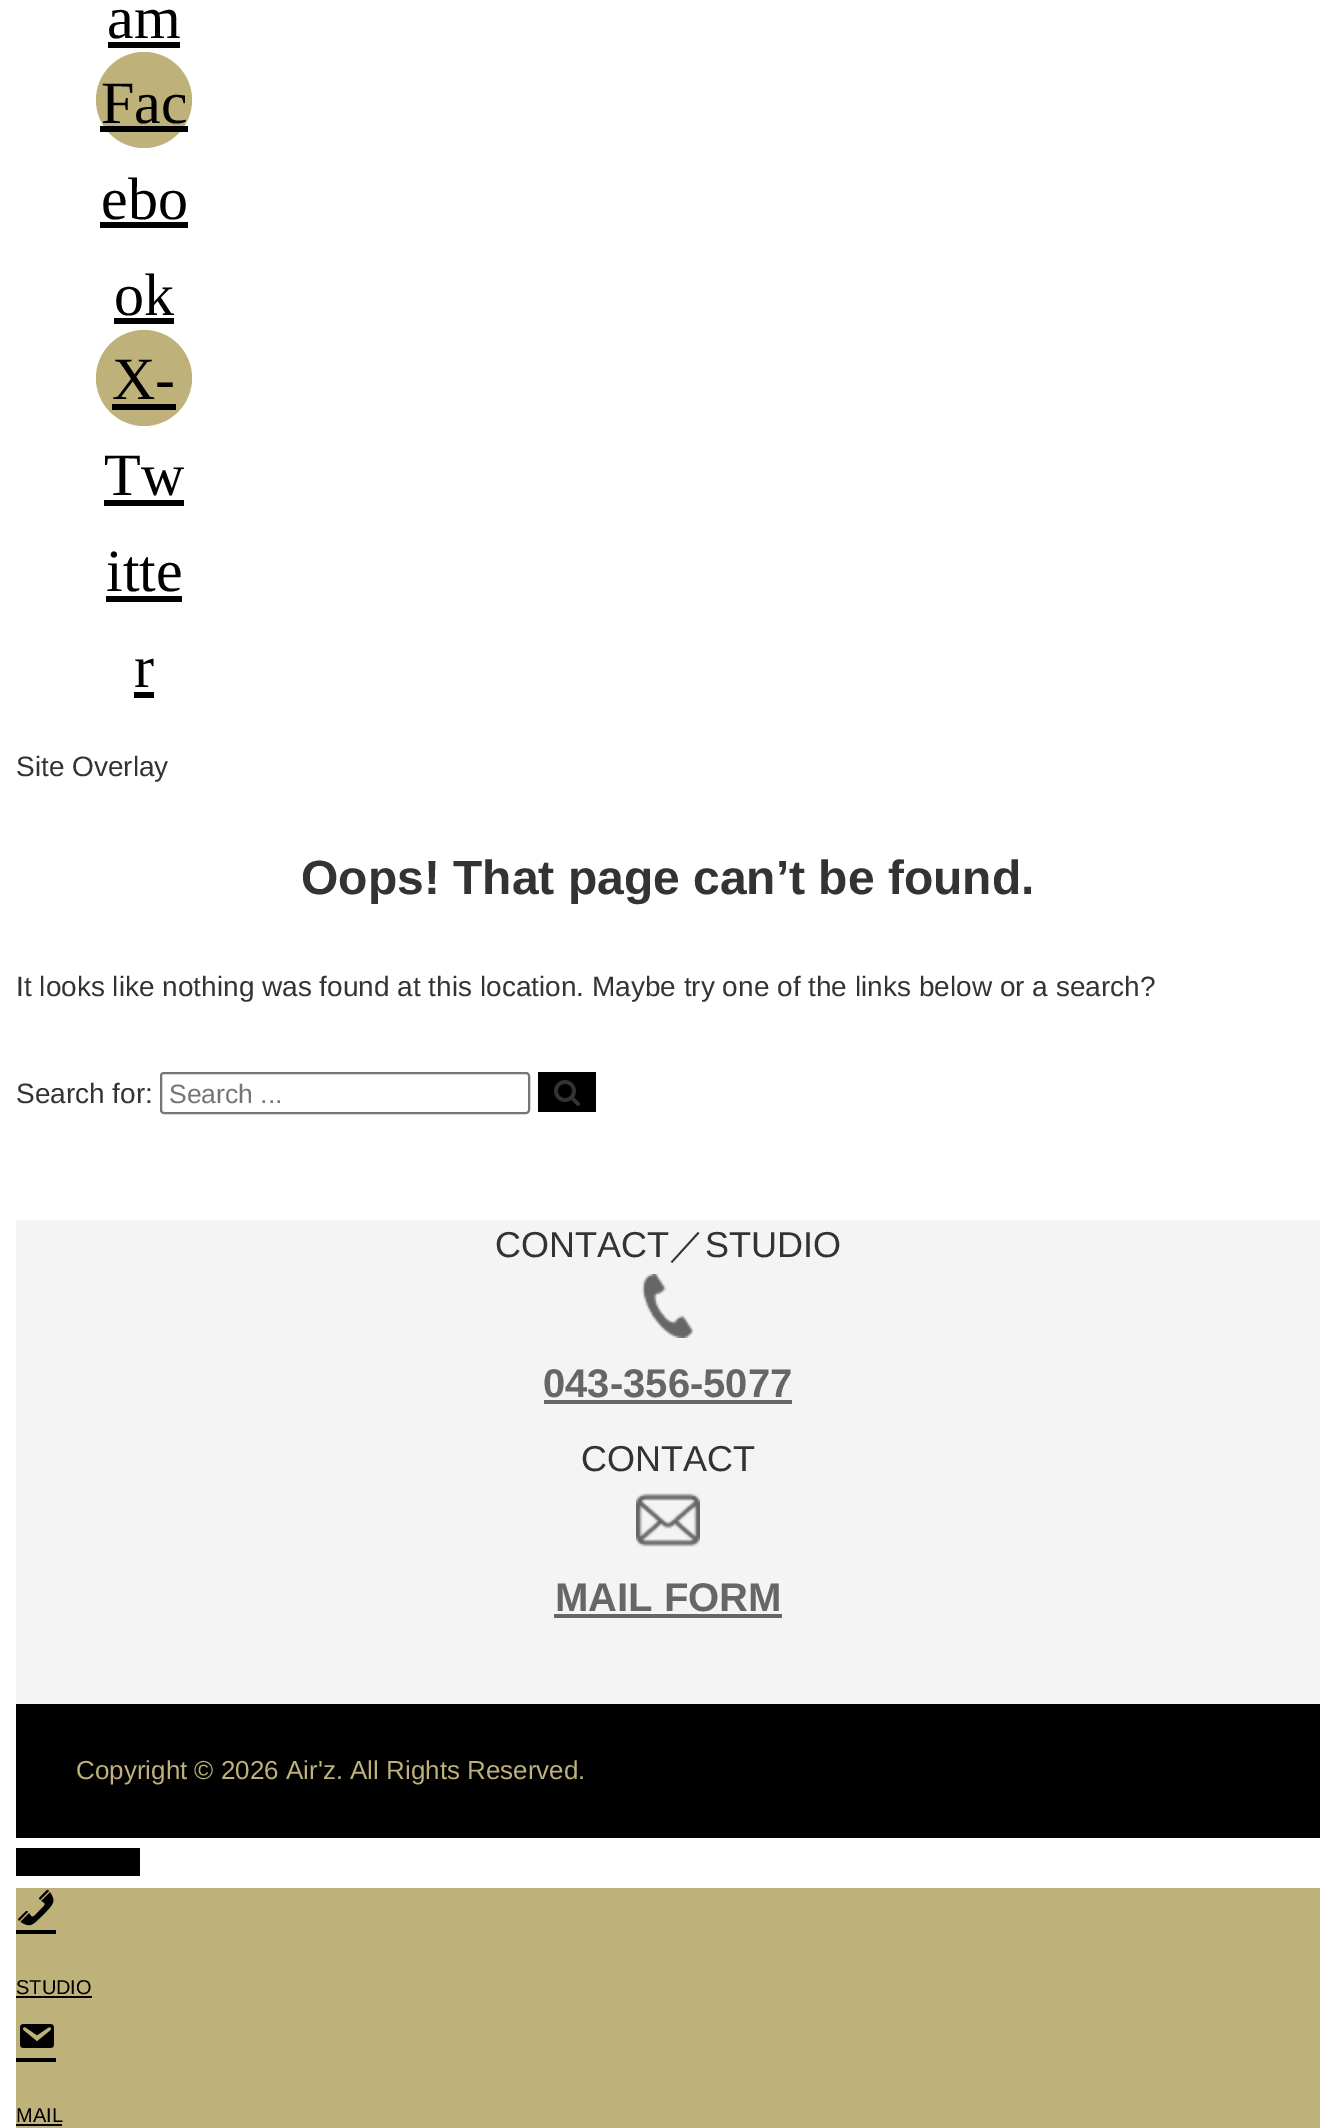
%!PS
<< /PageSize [1336 2128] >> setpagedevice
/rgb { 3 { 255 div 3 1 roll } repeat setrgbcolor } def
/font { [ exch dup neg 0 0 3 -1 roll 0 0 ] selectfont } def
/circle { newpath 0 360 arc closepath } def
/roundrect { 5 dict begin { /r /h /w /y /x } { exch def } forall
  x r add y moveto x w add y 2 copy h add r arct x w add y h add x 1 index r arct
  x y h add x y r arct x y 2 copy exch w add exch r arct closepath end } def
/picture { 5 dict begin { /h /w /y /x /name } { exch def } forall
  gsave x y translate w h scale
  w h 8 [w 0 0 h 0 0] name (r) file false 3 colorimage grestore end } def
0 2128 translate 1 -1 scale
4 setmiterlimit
255 255 255 rgb
0 0 1336 2128 rectfill
0 0 0 rgb
108 42 72 6 rectfill
190 178 122 rgb
144 100 48 circle fill
[
  [100 126 88 6 0 0 0]
  [100 222 88 6 0 0 0]
  [114 318 60 6 0 0 0]
] { aload pop rgb rectfill } forall
190 178 122 rgb
144 378 48 circle fill
[
  [112 404 64 6 0 0 0]
  [104 500 80 6 0 0 0]
  [106 596 76 6 0 0 0]
  [134 692 20 6 0 0 0]
] { aload pop rgb rectfill } forall
118 118 118 rgb
2 setlinewidth
161 1073 368 40 3 roundrect stroke
0 0 0 rgb
538 1072 58 40 rectfill
(img/1.rgb) 554 1080 26 26 picture
244 244 244 rgb
16 1220 1304 484 rectfill
(img/2.rgb) 641 1274 53 64 picture
102 102 102 rgb
544 1400 248 4 rectfill
(img/3.rgb) 636 1493 64 54 picture
[
  [554 1614 228 4 102 102 102]
  [16 1704 1304 134 0 0 0]
  [16 1848 124 28 0 0 0]
  [16 1888 1304 240 190 178 122]
] { aload pop rgb rectfill } forall
(img/4.rgb) 18 1889 36 37 picture
0 0 0 rgb
16 1930 40 4 rectfill
16 1996 76 2 rectfill
(img/5.rgb) 20 2024 34 24 picture
16 2058 40 4 rectfill
16 2124 46 2 rectfill
/LiberationSerif-Regular 60 font
[
  [(am) 107 38]
  [(Fac) 101 123]
  [(ebo) 101 219]
  [(ok) 114 315]
  [(X-) 112 399]
  [(Tw) 104 495]
  [(itte) 106 591]
  [(r) 134 687]
] { aload pop moveto show } forall
/LiberationSans-Regular 28 font
51 51 51 rgb
16 776 moveto (Site Overlay) show
/LiberationSans-Bold 48 font
301 894 moveto (Oops! That page can’t be found.) show
/LiberationSans-Regular 28 font
16 996 moveto (It looks like nothing was found at this location. Maybe try one of the links below or a search?) show
16 1103 moveto (Search for:) show
/LiberationSans-Regular 26.5 font
117 117 117 rgb
169 1103 moveto (Search ...) show
/LiberationSans-Regular 36 font
51 51 51 rgb
495 1257 moveto (CONTACT) show
/WenQuanYiZenHei-Medium 36 font
669 1257 moveto (／) show
/LiberationSans-Regular 36 font
705 1257 moveto (STUDIO) show
/LiberationSans-Bold 40 font
102 102 102 rgb
543 1397 moveto (043-356-5077) show
/LiberationSans-Regular 36 font
51 51 51 rgb
581 1471 moveto (CONTACT) show
/LiberationSans-Bold 40 font
102 102 102 rgb
555 1611 moveto (MAIL FORM) show
/LiberationSans-Regular 26 font
190 178 122 rgb
76 1779 moveto (Copyright © 2026 Air'z. All Rights Reserved.) show
/LiberationSans-Regular 20 font
0 0 0 rgb
16 1994 moveto (STUDIO) show
16 2122 moveto (MAIL) show
showpage
